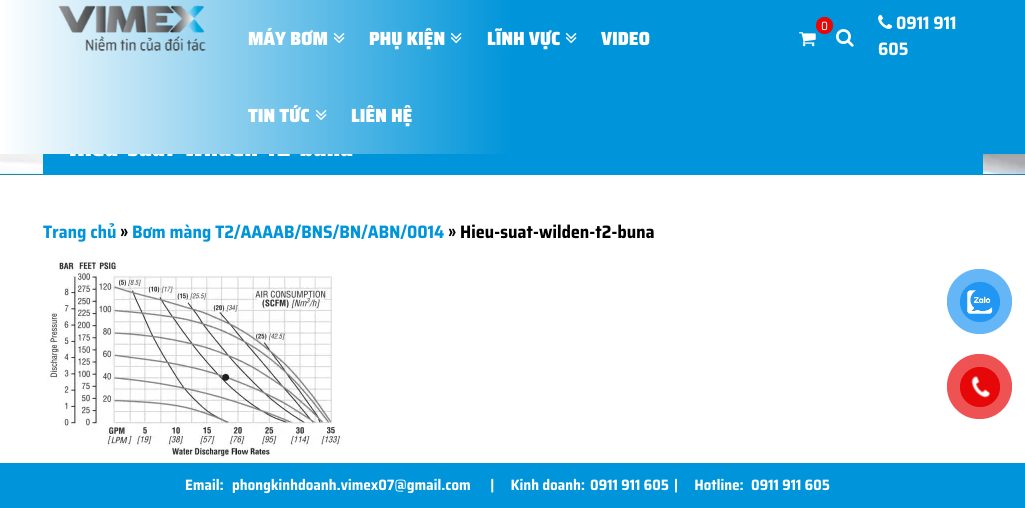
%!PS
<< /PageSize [1025 508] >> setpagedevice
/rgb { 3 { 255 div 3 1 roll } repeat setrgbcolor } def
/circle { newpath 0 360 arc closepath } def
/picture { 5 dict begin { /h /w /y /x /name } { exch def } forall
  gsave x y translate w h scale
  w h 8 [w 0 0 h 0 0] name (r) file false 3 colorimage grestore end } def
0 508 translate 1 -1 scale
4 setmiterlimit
255 255 255 rgb
0 0 1025 508 rectfill
gsave 5 0 moveto 1025 0 lineto 1025 154 lineto 5 154 lineto closepath clip newpath
<< /ShadingType 2 /ColorSpace /DeviceRGB /Coords [0 77 1025 77] /Extend [true true] /Function << /FunctionType 3 /Domain [0 1] /Functions [<< /FunctionType 2 /Domain [0 1] /C0 [1 1 1] /C1 [0 0.584 0.855] /N 1 >> << /FunctionType 2 /Domain [0 1] /C0 [0 0.584 0.855] /C1 [0 0.584 0.855] /N 1 >>] /Bounds [0.5] /Encode [0 1 0 1] >> >> shfill grestore
(img/1.rgb) 58 5 148 46 picture
(img/2.rgb) 248 27 80 19 picture
(img/3.rgb) 333 33 12 11 picture
(img/4.rgb) 369 28 76 22 picture
(img/5.rgb) 450 33 12 11 picture
(img/6.rgb) 487 28 73 22 picture
(img/7.rgb) 565 33 12 11 picture
(img/8.rgb) 601 31 49 15 picture
(img/9.rgb) 248 105 61 18 picture
(img/10.rgb) 315 110 12 11 picture
(img/11.rgb) 351 105 61 22 picture
230 8 8 rgb
824.5 25.5 8.5 circle fill
(img/12.rgb) 821 21 7 10 picture
(img/13.rgb) 799 32 17 15 picture
(img/14.rgb) 836 29 18 18 picture
(img/15.rgb) 878 14 15 15 picture
(img/16.rgb) 896 16 60 14 picture
(img/17.rgb) 878 42 30 14 picture
(img/18.rgb) 0 154 1025 21 picture
0 149 218 rgb
43 154 940 21 rectfill
(img/19.rgb) 70 154 283 3 picture
(img/20.rgb) 43 223 73 19 picture
(img/21.rgb) 120 228 8 9 picture
(img/22.rgb) 133 224 311 18 picture
(img/21.rgb) 448 228 8 9 picture
(img/23.rgb) 461 224 193 15 picture
(img/24.rgb) 47 259 296 200 picture
100 182 247 rgb
979.5 301.5 32.5 circle fill
33 150 243 rgb
980 302 20 circle fill
(img/25.rgb) 967 290 26 24 picture
238 82 82 rgb
979.5 386.5 32.5 circle fill
230 8 8 rgb
980 387 20 circle fill
(img/26.rgb) 971 376 19 22 picture
0 149 218 rgb
0 463 1025 45 rectfill
(img/27.rgb) 185 478 38 13 picture
(img/28.rgb) 232 478 353 16 picture
(img/29.rgb) 590 479 79 12 picture
(img/30.rgb) 675 478 68 15 picture
(img/29.rgb) 751 479 79 12 picture
showpage
